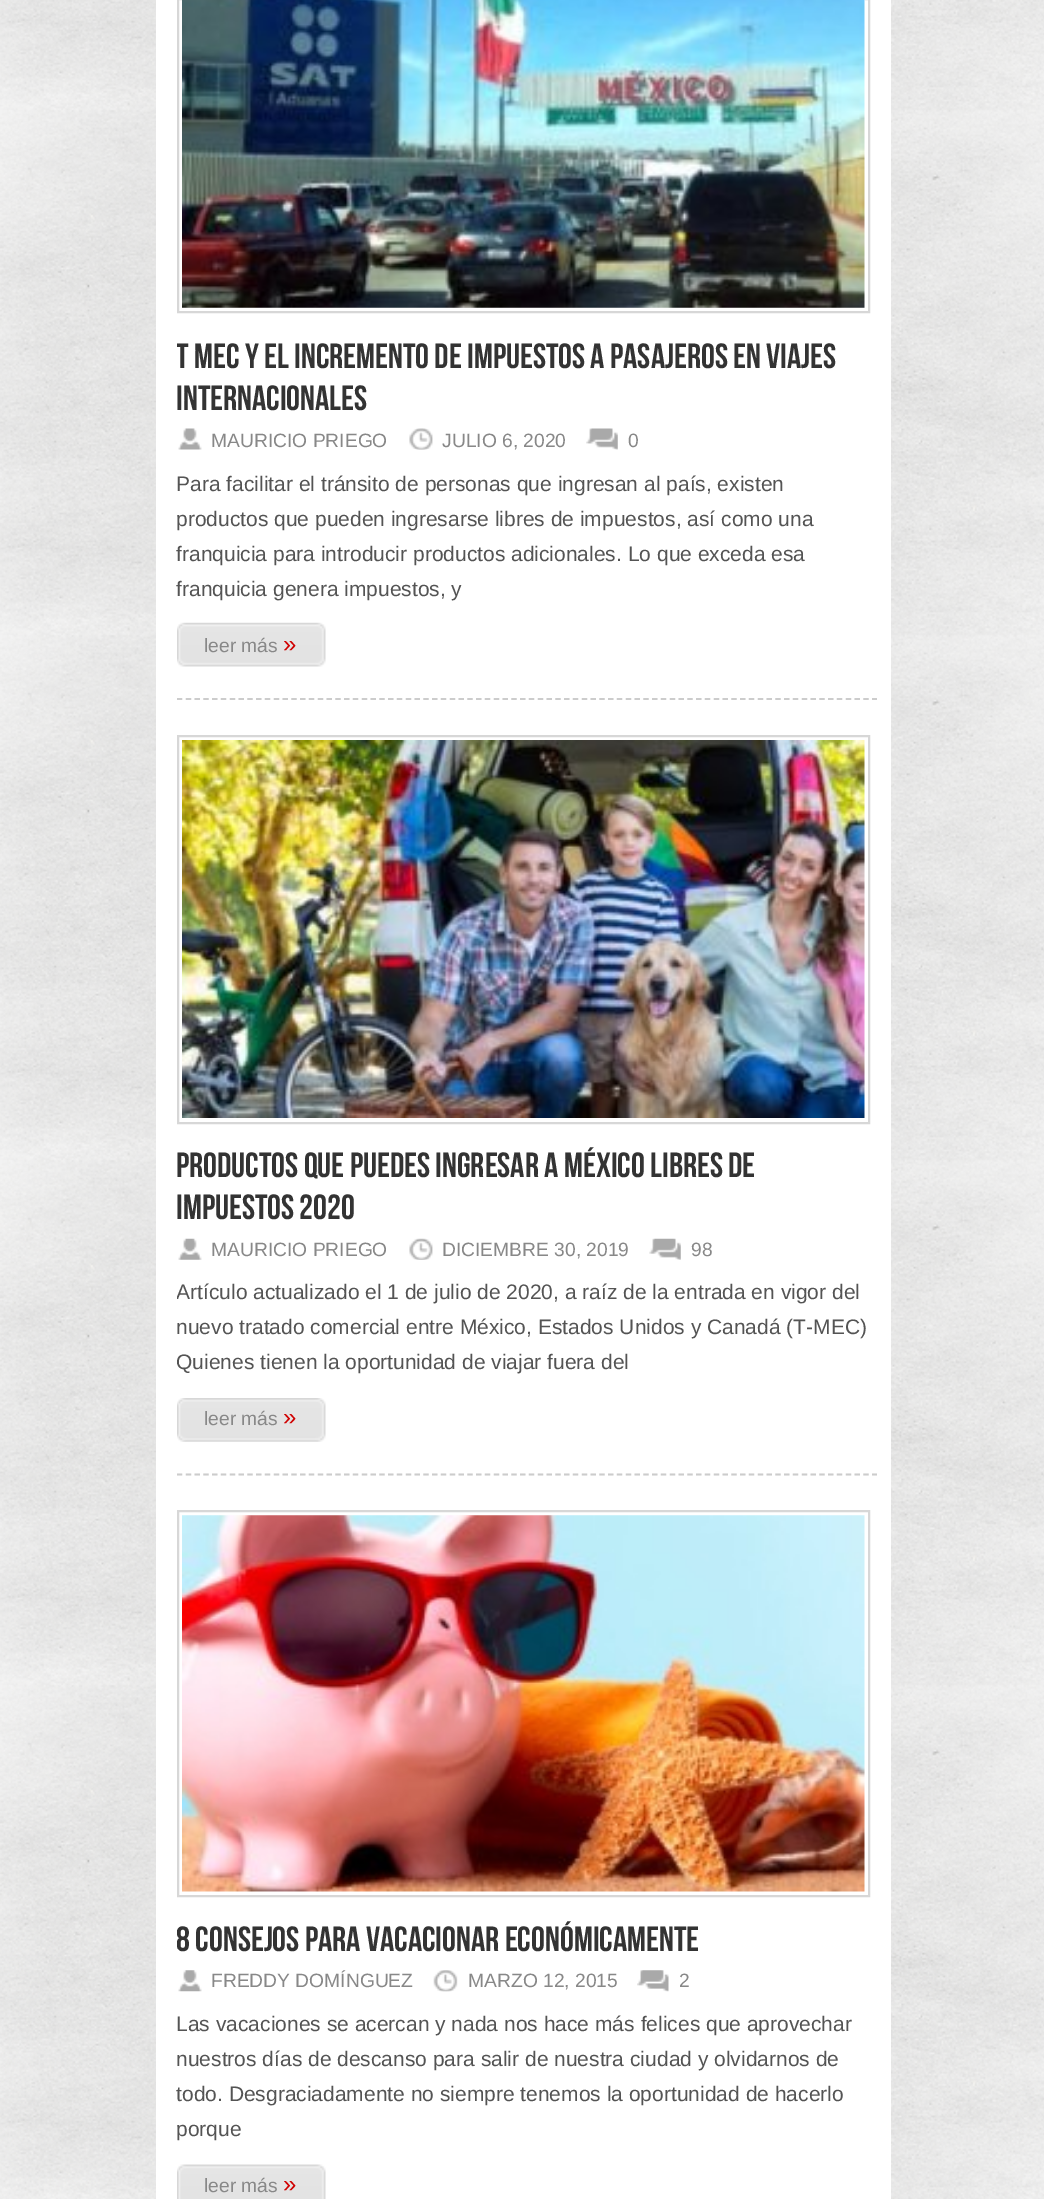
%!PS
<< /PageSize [1044 2199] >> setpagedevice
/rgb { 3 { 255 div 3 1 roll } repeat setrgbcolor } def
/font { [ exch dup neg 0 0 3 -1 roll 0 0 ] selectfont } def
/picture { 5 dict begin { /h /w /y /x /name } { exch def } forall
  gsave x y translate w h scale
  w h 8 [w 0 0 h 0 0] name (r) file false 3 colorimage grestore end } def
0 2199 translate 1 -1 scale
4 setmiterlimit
246 246 246 rgb
0 0 1044 2199 rectfill
(img/1.rgb) 0 0 1044 2199 picture
255 255 255 rgb
156 0 735 2199 rectfill
204 204 204 rgb
1.8 setlinewidth
[5.25 3.55] 0 setdash
177 699 moveto 877 699 lineto stroke
215 215 215 rgb
2 setlinewidth
[] 0 setdash
178 -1 691 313 rectstroke
(img/2.rgb) 182 0 683 308 picture
(img/3.rgb) 178 428 24 22 picture
(img/4.rgb) 409 428 24 22 picture
(img/5.rgb) 586 428 32 22 picture
(img/6.rgb) 177 622 149 45 picture
204 204 204 rgb
1.8 setlinewidth
[5.25 3.55] 0 setdash
177 1474.5 moveto 877 1474.5 lineto stroke
215 215 215 rgb
2 setlinewidth
[] 0 setdash
178 736 691 387 rectstroke
(img/7.rgb) 182 740 683 378 picture
(img/8.rgb) 178 1238 24 22 picture
(img/9.rgb) 409 1238 24 22 picture
(img/10.rgb) 649 1238 32 22 picture
(img/11.rgb) 177 1398 149 44 picture
178 1511 691 385 rectstroke
(img/12.rgb) 182 1515 683 377 picture
(img/13.rgb) 178 1970 24 22 picture
(img/14.rgb) 433 1970 25 22 picture
(img/15.rgb) 637 1970 32 22 picture
(img/16.rgb) 177 2164 149 35 picture
gsave
177 0 700 698 rectclip
/BebasNeue-Regular 35 font
51 51 51 rgb
176 368 moveto (T MEC y el Incremento de Impuestos a pasajeros en viajes) show
grestore
/BebasNeue-Regular 35 font
51 51 51 rgb
176 410 moveto (internacionales) show
/LiberationSans-Regular 19.25 font
136 136 136 rgb
[
  [(MAURICIO PRIEGO) 211 447]
  [(JULIO 6, 2020) 442 447]
  [(0) 628 447]
] { aload pop moveto show } forall
/LiberationSans-Regular 21 font
84 84 84 rgb
[
  [(Para facilitar el tránsito de personas que ingresan al país, existen) 176 491]
  [(productos que pueden ingresarse libres de impuestos, así como una) 176 526]
  [(franquicia para introducir productos adicionales. Lo que exceda esa) 176 561]
  [(franquicia genera impuestos, y) 176 596]
] { aload pop moveto show } forall
/LiberationSans-Regular 19.25 font
136 136 136 rgb
204 652 moveto (leer más) show
/LiberationSans-Regular 24 font
208 0 0 rgb
283 652 moveto (») show
/BebasNeue-Regular 35 font
51 51 51 rgb
176 1177 moveto (Productos que puedes ingresar a México libres de) show
176 1219 moveto (impuestos 2020) show
/LiberationSans-Regular 19.25 font
136 136 136 rgb
[
  [(MAURICIO PRIEGO) 211 1256]
  [(DICIEMBRE 30, 2019) 442 1256]
  [(98) 691 1256]
] { aload pop moveto show } forall
gsave
177 735 700 739 rectclip
/LiberationSans-Regular 21 font
84 84 84 rgb
176 1299 moveto (Artículo actualizado el 1 de julio de 2020, a raíz de la entrada en vigor del) show
grestore
/LiberationSans-Regular 21 font
84 84 84 rgb
176 1334 moveto (nuevo tratado comercial entre México, Estados Unidos y Canadá \(T-MEC\)) show
176 1369 moveto (Quienes tienen la oportunidad de viajar fuera del) show
/LiberationSans-Regular 19.25 font
136 136 136 rgb
204 1425 moveto (leer más) show
/LiberationSans-Regular 24 font
208 0 0 rgb
283 1425 moveto (») show
gsave
177 1510 700 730 rectclip
/BebasNeue-Regular 35 font
51 51 51 rgb
176 1951 moveto (8 consejos para vacacionar económicamente) show
grestore
/LiberationSans-Regular 19.25 font
136 136 136 rgb
[
  [(FREDDY DOMÍNGUEZ) 211 1987]
  [(MARZO 12, 2015) 468 1987]
  [(2) 679 1987]
] { aload pop moveto show } forall
/LiberationSans-Regular 21 font
84 84 84 rgb
[
  [(Las vacaciones se acercan y nada nos hace más felices que aprovechar) 176 2031]
  [(nuestros días de descanso para salir de nuestra ciudad y olvidarnos de) 176 2066]
  [(todo. Desgraciadamente no siempre tenemos la oportunidad de hacerlo) 176 2101]
  [(porque) 176 2136]
] { aload pop moveto show } forall
/LiberationSans-Regular 19.25 font
136 136 136 rgb
204 2192 moveto (leer más) show
/LiberationSans-Regular 24 font
208 0 0 rgb
283 2192 moveto (») show
showpage
